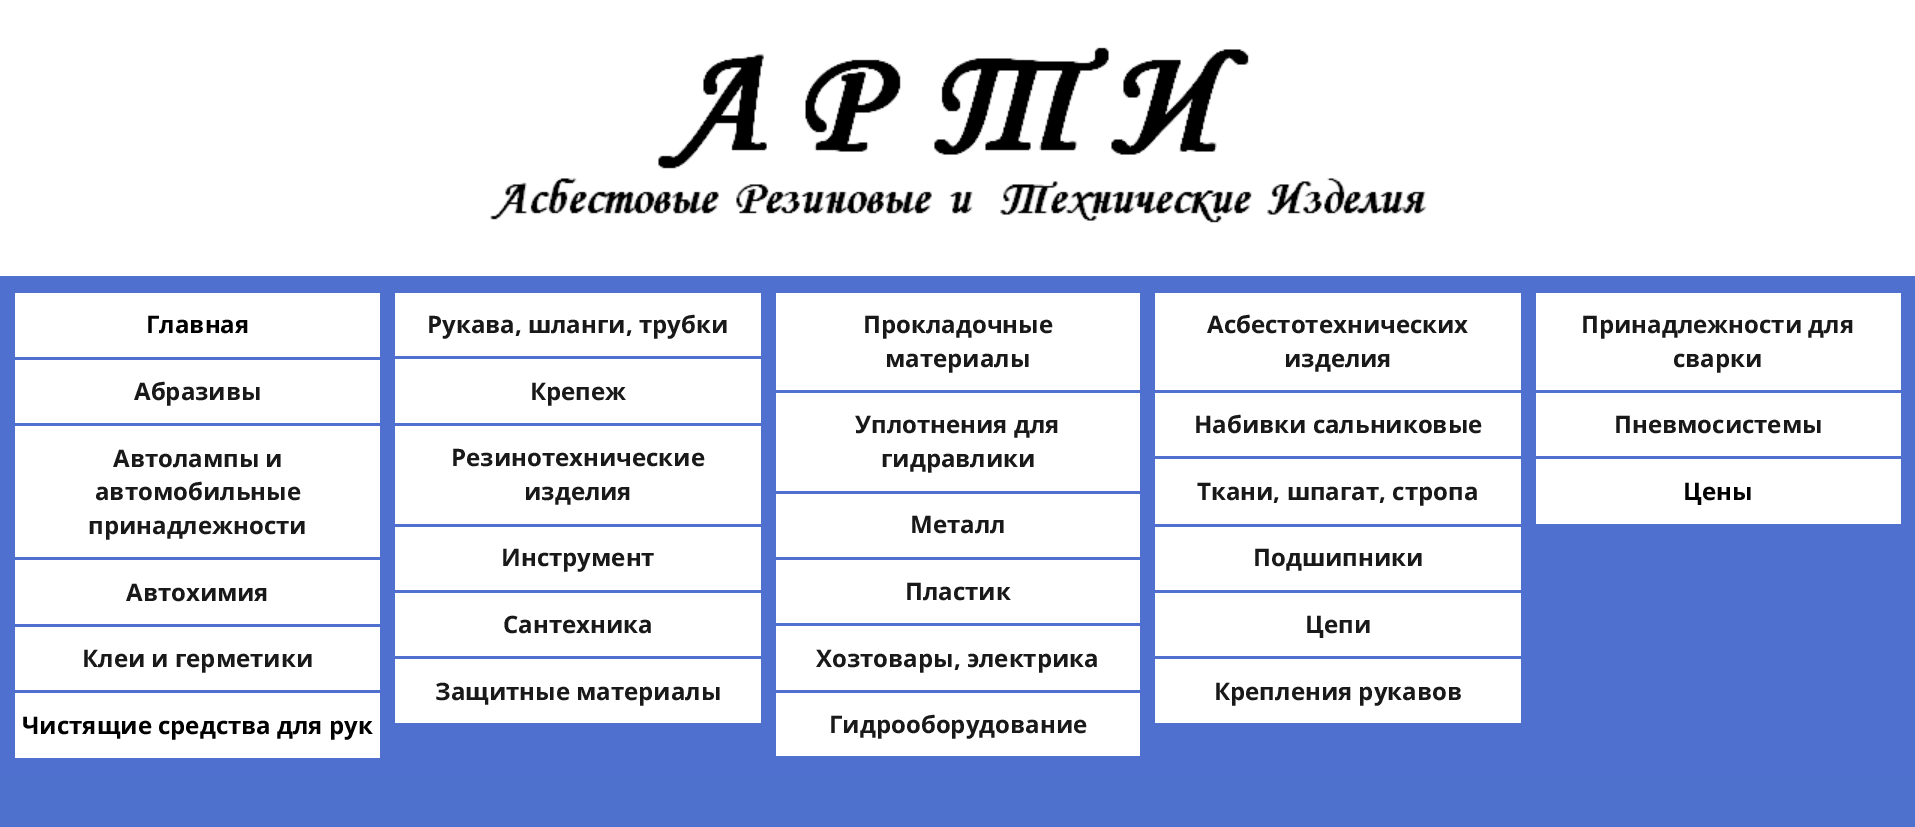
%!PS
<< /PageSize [1915 827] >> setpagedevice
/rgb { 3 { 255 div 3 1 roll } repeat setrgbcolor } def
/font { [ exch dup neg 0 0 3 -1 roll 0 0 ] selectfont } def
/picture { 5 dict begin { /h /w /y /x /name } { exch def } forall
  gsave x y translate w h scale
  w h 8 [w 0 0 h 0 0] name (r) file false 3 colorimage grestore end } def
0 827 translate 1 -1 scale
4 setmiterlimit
255 255 255 rgb
0 0 1915 827 rectfill
(img/1.rgb) 490 47 937 176 picture
[
  [0 276 1915 498 79 112 206]
  [15 293 365 64 255 255 255]
  [15 360 365 63 255 255 255]
  [15 426 365 131 255 255 255]
  [15 560 365 64 255 255 255]
  [15 627 365 63 255 255 255]
  [15 693 365 65 255 255 255]
  [395 293 366 63 255 255 255]
  [395 359 366 64 255 255 255]
  [395 426 366 98 255 255 255]
  [395 527 366 63 255 255 255]
  [395 593 366 63 255 255 255]
  [395 659 366 64 255 255 255]
  [776 293 364 97 255 255 255]
  [776 393 364 98 255 255 255]
  [776 494 364 63 255 255 255]
  [776 560 364 63 255 255 255]
  [776 626 364 64 255 255 255]
  [776 693 364 63 255 255 255]
  [1155 293 366 97 255 255 255]
  [1155 393 366 63 255 255 255]
  [1155 459 366 65 255 255 255]
  [1155 527 366 63 255 255 255]
  [1155 593 366 63 255 255 255]
  [1155 659 366 64 255 255 255]
  [1536 293 365 97 255 255 255]
  [1536 393 365 63 255 255 255]
  [1536 459 365 65 255 255 255]
  [0 774 1915 53 79 113 206]
] { aload pop rgb rectfill } forall
/OpenSans-Bold 24 font
0 0 0 rgb
146 333 moveto (Главная) show
25 25 25 rgb
[
  [(Абразивы) 134 400]
  [(Автолампы и) 113 467]
  [(автомобильные) 95 500]
  [(принадлежности) 88 534]
  [(Автохимия) 126 601]
  [(Клеи и герметики) 82 667]
] { aload pop moveto show } forall
0 0 0 rgb
22 734 moveto (Чистящие средства для рук) show
25 25 25 rgb
[
  [(Рукава, шланги, трубки) 427 333]
  [(Крепеж) 530 400]
  [(Резинотехнические) 451 466]
  [(изделия) 524 500]
  [(Инструмент) 501 566]
  [(Сантехника) 503 633]
  [(Защитные материалы) 435 700]
  [(Прокладочные) 863 333]
  [(материалы) 885 367]
  [(Уплотнения для) 855 433]
  [(гидравлики) 881 467]
  [(Металл) 910 533]
  [(Пластик) 905 600]
  [(Хозтовары, электрика) 816 667]
  [(Гидрооборудование) 829 733]
  [(Асбестотехнических) 1207 333]
  [(изделия) 1284 367]
  [(Набивки сальниковые) 1194 433]
  [(Ткани, шпагат, стропа) 1197 500]
  [(Подшипники) 1253 566]
  [(Цепи) 1305 633]
  [(Крепления рукавов) 1214 700]
  [(Принадлежности для) 1581 333]
  [(сварки) 1673 367]
  [(Пневмосистемы) 1614 433]
] { aload pop moveto show } forall
0 0 0 rgb
1683 500 moveto (Цены) show
showpage
